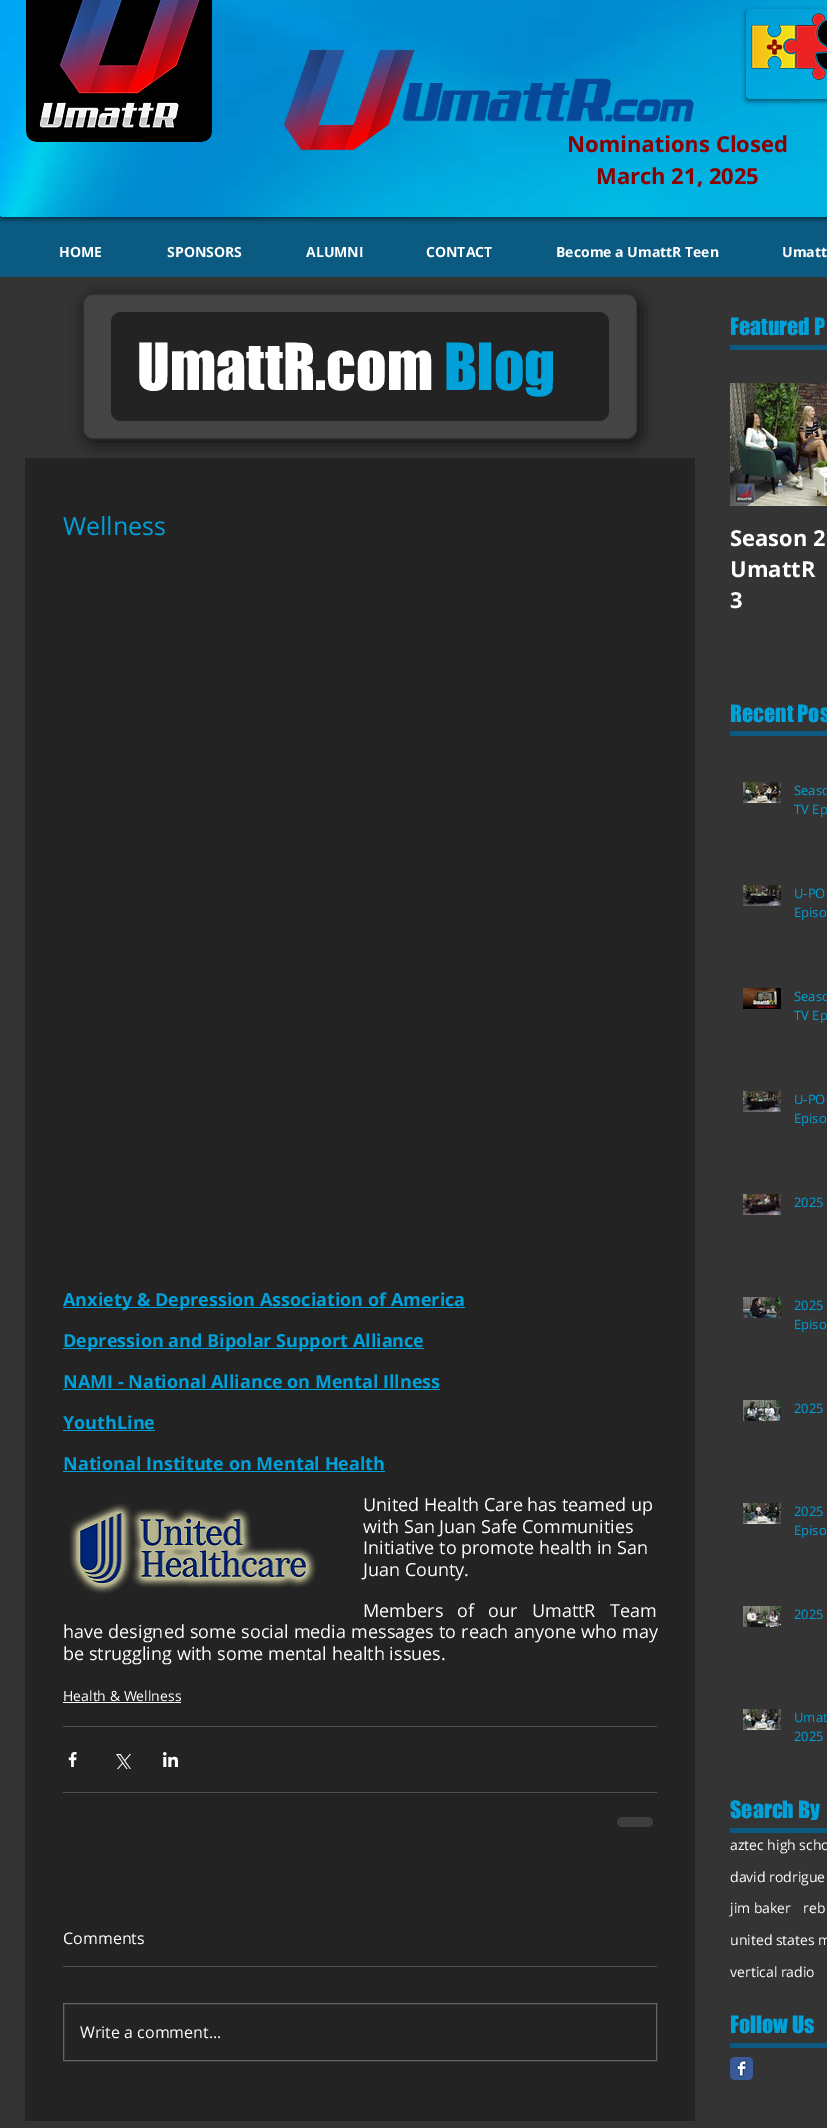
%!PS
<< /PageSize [827 2128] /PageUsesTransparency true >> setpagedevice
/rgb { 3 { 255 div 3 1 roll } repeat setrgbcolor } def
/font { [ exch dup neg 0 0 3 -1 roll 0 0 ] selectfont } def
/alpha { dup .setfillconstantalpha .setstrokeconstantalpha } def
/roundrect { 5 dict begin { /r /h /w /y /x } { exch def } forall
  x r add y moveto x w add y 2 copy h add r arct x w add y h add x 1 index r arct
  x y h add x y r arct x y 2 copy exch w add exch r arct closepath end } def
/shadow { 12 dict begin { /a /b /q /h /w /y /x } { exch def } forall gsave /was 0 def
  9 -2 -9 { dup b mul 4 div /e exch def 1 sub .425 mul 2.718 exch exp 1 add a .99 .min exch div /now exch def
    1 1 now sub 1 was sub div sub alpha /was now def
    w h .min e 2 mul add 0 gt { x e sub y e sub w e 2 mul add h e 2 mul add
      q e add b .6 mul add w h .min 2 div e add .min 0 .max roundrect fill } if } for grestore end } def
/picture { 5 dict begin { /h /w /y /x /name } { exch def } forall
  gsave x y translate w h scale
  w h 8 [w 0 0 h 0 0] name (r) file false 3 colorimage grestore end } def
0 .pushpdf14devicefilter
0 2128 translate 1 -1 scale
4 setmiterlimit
10 90 130 rgb
0 0 827 2128 rectfill
0 0 0 rgb
0 -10 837 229 2 2.5 0.53 shadow
(img/1.rgb) 0 0 827 217 picture
(img/2.rgb) 26 0 186 142 picture
gsave
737 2 moveto 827 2 lineto 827 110 lineto 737 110 lineto closepath 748 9 moveto 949 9 lineto 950 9 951 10 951 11 curveto 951 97 lineto 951 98 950 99 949 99 curveto 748 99 lineto 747 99 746 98 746 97 curveto 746 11 lineto 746 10 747 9 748 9 curveto closepath eoclip newpath
746 11 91 90 2 2.5 0.53 shadow
grestore
(img/4.rgb) 751 13 76 67 picture
52 52 52 rgb
0 277 827 1851 rectfill
gsave
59 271 moveto 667 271 lineto 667 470 lineto 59 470 lineto closepath 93 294 moveto 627 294 lineto 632.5 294 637 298.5 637 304 curveto 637 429 lineto 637 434.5 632.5 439 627 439 curveto 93 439 lineto 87.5 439 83 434.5 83 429 curveto 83 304 lineto 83 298.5 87.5 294 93 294 curveto closepath eoclip newpath
0 0 0 rgb
84 296 558 149 12 8 0.6 shadow
grestore
0.1 alpha
207 207 207 rgb
83.5 294.5 553 144 9.5 roundrect fill
1 alpha
52 52 52 rgb
83.5 294.5 553 144 9.5 roundrect stroke
10 90 130 rgb
730 345 97 5 rectfill
(img/5.rgb) 730 383 97 123 picture
730 731 97 5 rectfill
(img/6.rgb) 743 782 38 21 picture
(img/7.rgb) 743 885 38 21 picture
(img/8.rgb) 743 988 38 21 picture
(img/9.rgb) 743 1091 38 21 picture
(img/10.rgb) 743 1194 38 21 picture
(img/11.rgb) 743 1297 38 21 picture
(img/12.rgb) 743 1400 38 21 picture
(img/13.rgb) 743 1503 38 21 picture
(img/14.rgb) 743 1606 38 21 picture
(img/15.rgb) 743 1709 38 21 picture
730 1828 97 5 rectfill
730 2043 97 5 rectfill
(img/16.rgb) 730 2057 23 23 picture
35 35 35 rgb
111 312 498 109 10 roundrect fill
[
  [25 458 670 1663 35 35 35]
  [63 1307 402 1 0 160 217]
  [63 1348 361 1 0 160 217]
  [63 1389 377 1 0 160 217]
  [63 1430 92 1 0 160 217]
  [63 1471 322 1 0 160 217]
] { aload pop rgb rectfill } forall
(img/17.rgb) 69 1503 248 91 picture
255 255 255 rgb
63 1702 118 1 rectfill
79 79 79 rgb
63 1726 594 1 rectfill
(img/18.rgb) 68 1752 9 15 picture
(img/19.rgb) 116 1754 15 15 picture
(img/20.rgb) 163 1752 15 15 picture
63 1792 594 1 rectfill
61 61 61 rgb
617 1817 36 10 5 roundrect fill
79 79 79 rgb
63 1966 594 1 rectfill
101 101 101 rgb
63.5 2003.5 593 57 rectstroke
/OpenSans-Bold 22 font
139 0 0 rgb
567 152 moveto (Nominations Closed) show
(img/3.rgb) 283 49 411 102 picture
596 184 moveto (March 21, 2025) show
/OpenSans-Bold 14 font
255 255 255 rgb
[
  [(HOME) 59 257]
  [(SPONSORS) 167 257]
  [(ALUMNI) 306 257]
  [(CONTACT) 426 257]
  [(Become a UmattR Teen) 556 257]
  [(Umatt) 782 257]
] { aload pop moveto show } forall
/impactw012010-Regular 22 font
0 160 217 rgb
730 335 moveto (Featured P) show
/OpenSans-Bold 22 font
255 255 255 rgb
[
  [(Season 2) 730 546]
  [(UmattR) 730 577]
  [(3) 730 608]
] { aload pop moveto show } forall
/impactw012010-Regular 22 font
0 160 217 rgb
730 722 moveto (Recent Pos) show
/OpenSans-Regular 13 font
[
  [(Seaso) 794 795]
  [(TV Ep) 794 814]
  [(U-PO) 794 898]
  [(Episo) 794 917]
  [(Seaso) 794 1001]
  [(TV Ep) 794 1020]
  [(U-PO) 794 1104]
  [(Episo) 794 1123]
  [(2025) 794 1207]
  [(2025) 794 1310]
  [(Episo) 794 1329]
  [(2025) 794 1413]
  [(2025) 794 1516]
  [(Episo) 794 1535]
  [(2025) 794 1619]
  [(Umat) 794 1722]
  [(2025) 794 1741]
] { aload pop moveto show } forall
/impactw012010-Regular 22 font
730 1818 moveto (Search By) show
/OpenSans-Regular 14 font
255 255 255 rgb
[
  [(aztec high scho) 730 1850]
  [(david rodrigue) 730 1882]
  [(jim baker) 730 1913]
  [(reb) 803 1913]
  [(united states m) 730 1945]
  [(vertical radio) 730 1977]
] { aload pop moveto show } forall
/impactw012010-Regular 22 font
0 160 217 rgb
730 2033 moveto (Follow Us) show
/impactw012010-Regular 60 font
255 255 255 rgb
137 390 moveto (UmattR.com) show
0 160 217 rgb
444 390 moveto (Blog) show
/OpenSans-Regular 25 font
63 535 moveto (Wellness) show
/OpenSans-Bold 18 font
[
  [(Anxiety & Depression Association of America) 63 1306]
  [(Depression and Bipolar Support Alliance) 63 1347]
  [(NAMI - National Alliance on Mental Illness) 63 1388]
  [(YouthLine) 63 1429]
  [(National Institute on Mental Health) 63 1470]
] { aload pop moveto show } forall
/OpenSans-Regular 18 font
255 255 255 rgb
[
  [(United Health Care has teamed up) 363 1511]
  [(with San Juan Safe Communities) 363 1533]
  [(Initiative to promote health in San) 363 1554]
  [(Juan County.) 363 1576]
] { aload pop moveto show } forall
363 1617 moveto 9.5 0 32 (Members of our UmattR Team) widthshow
63 1638 moveto 0.5 0 32 (have designed some social media messages to reach anyone who may) widthshow
63 1660 moveto (be struggling with some mental health issues.) show
/OpenSans-Regular 14 font
63 1701 moveto (Health & Wellness) show
/OpenSans-Regular 16 font
63 1944 moveto (Comments) show
80 2038 moveto (Write a comment...) show
.poppdf14devicefilter showpage
